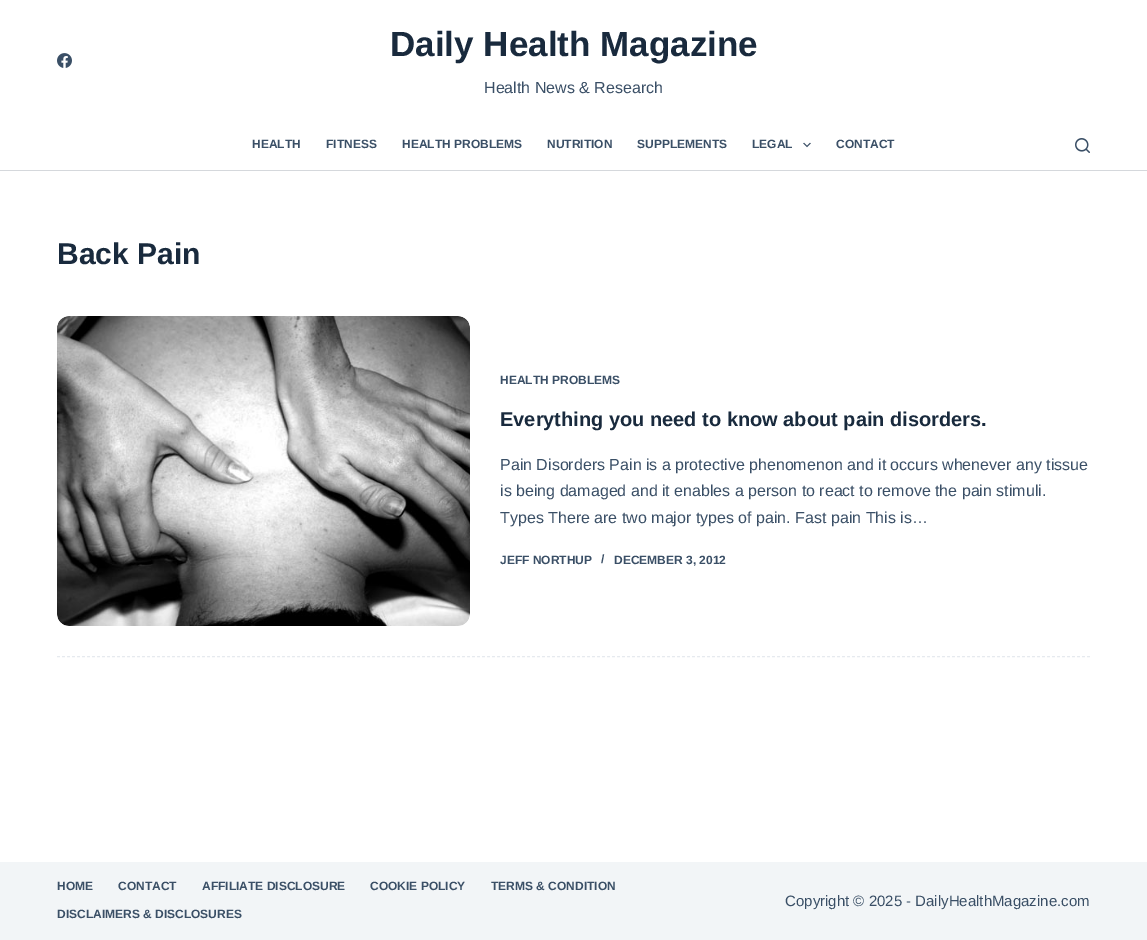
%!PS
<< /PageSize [1147 940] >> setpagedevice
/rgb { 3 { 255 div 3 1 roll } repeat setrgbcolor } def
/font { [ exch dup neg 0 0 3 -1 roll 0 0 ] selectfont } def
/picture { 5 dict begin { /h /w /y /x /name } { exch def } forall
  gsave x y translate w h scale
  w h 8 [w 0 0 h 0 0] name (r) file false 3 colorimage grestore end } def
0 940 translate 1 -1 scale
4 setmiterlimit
255 255 255 rgb
0 0 1147 940 rectfill
(img/1.rgb) 57 53 15 15 picture
213 216 220 rgb
0 170 1147 1 rectfill
(img/2.rgb) 803 142 8 6 picture
(img/3.rgb) 1075 138 15 15 picture
230 234 239 rgb
[3 2] 0 setdash
57 656.5 moveto 1090 656.5 lineto stroke
(img/4.rgb) 57 316 413 310 picture
242 245 247 rgb
0 862 1147 78 rectfill
/LiberationSans-Bold 35 font
25 42 61 rgb
390 56 moveto (Daily Health Magazine) show
/LiberationSans-Regular 16 font
58 79 102 rgb
484 93 moveto (Health News & Research) show
/LiberationSans-Bold 12 font
[
  [(HEALTH) 252 148]
  [(FITNESS) 326 148]
  [(HEALTH PROBLEMS) 402 148]
  [(NUTRITION) 547 148]
  [(SUPPLEMENTS) 637 148]
  [(LEGAL) 752 148]
  [(CONTACT) 836 148]
] { aload pop moveto show } forall
/LiberationSans-Bold 30 font
25 42 61 rgb
57 264 moveto (Back Pain) show
/LiberationSans-Bold 12 font
58 79 102 rgb
500 384 moveto (HEALTH PROBLEMS) show
/LiberationSans-Bold 20 font
25 42 61 rgb
500 426 moveto (Everything you need to know about pain disorders.) show
/LiberationSans-Regular 16 font
58 79 102 rgb
[
  [(Pain Disorders Pain is a protective phenomenon and it occurs whenever any tissue) 500 470]
  [(is being damaged and it enables a person to react to remove the pain stimuli.) 500 496]
  [(Types There are two major types of pain. Fast pain This is…) 500 523]
] { aload pop moveto show } forall
/LiberationSans-Bold 12 font
[
  [(JEFF NORTHUP) 500 564]
  [(/) 601 563]
  [(DECEMBER 3, 2012) 614 564]
  [(HOME) 57 890]
  [(CONTACT) 118 890]
  [(AFFILIATE DISCLOSURE) 202 890]
  [(COOKIE POLICY) 370 890]
  [(TERMS & CONDITION) 491 890]
  [(DISCLAIMERS & DISCLOSURES) 57 918]
] { aload pop moveto show } forall
/LiberationSans-Regular 15 font
785 906 moveto (Copyright © 2025 - DailyHealthMagazine.com) show
showpage
